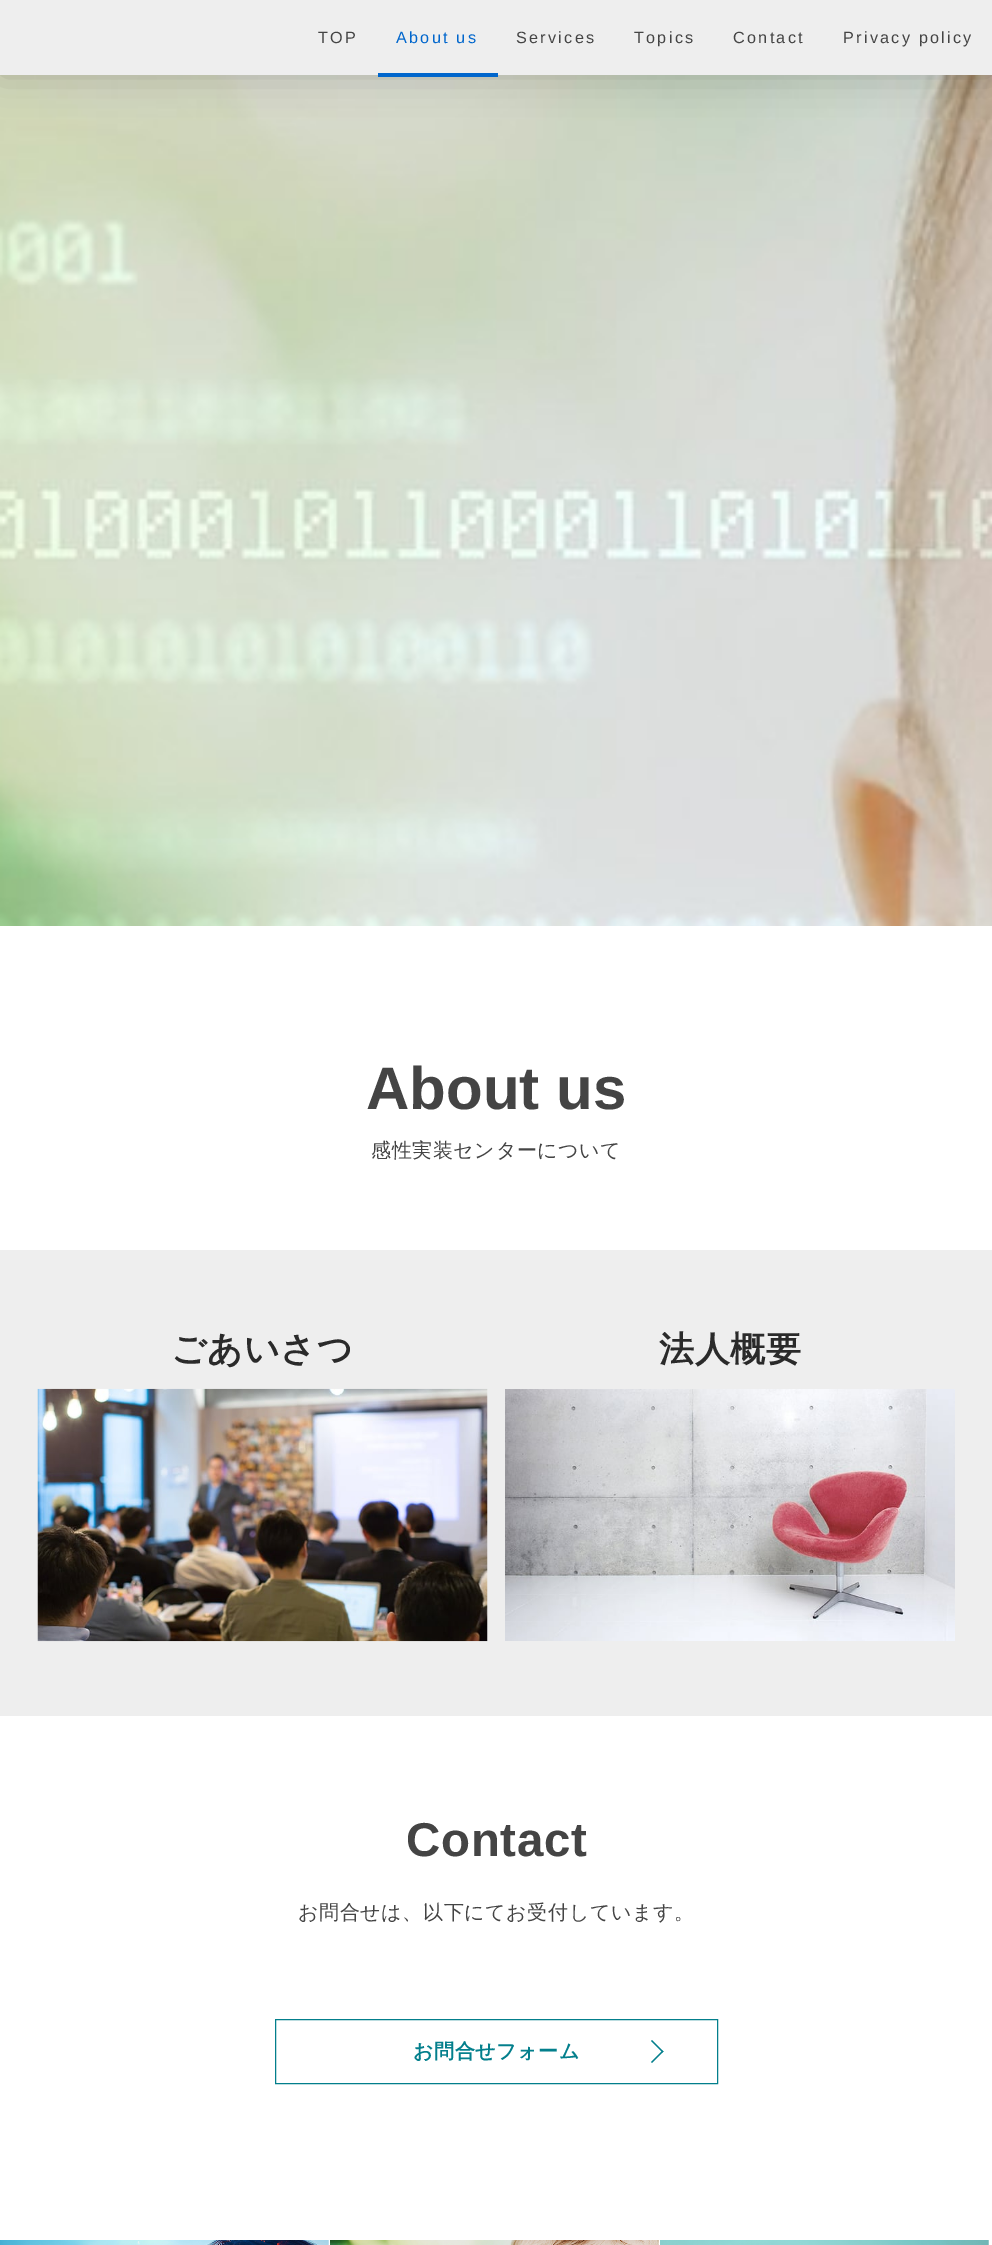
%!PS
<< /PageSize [992 2245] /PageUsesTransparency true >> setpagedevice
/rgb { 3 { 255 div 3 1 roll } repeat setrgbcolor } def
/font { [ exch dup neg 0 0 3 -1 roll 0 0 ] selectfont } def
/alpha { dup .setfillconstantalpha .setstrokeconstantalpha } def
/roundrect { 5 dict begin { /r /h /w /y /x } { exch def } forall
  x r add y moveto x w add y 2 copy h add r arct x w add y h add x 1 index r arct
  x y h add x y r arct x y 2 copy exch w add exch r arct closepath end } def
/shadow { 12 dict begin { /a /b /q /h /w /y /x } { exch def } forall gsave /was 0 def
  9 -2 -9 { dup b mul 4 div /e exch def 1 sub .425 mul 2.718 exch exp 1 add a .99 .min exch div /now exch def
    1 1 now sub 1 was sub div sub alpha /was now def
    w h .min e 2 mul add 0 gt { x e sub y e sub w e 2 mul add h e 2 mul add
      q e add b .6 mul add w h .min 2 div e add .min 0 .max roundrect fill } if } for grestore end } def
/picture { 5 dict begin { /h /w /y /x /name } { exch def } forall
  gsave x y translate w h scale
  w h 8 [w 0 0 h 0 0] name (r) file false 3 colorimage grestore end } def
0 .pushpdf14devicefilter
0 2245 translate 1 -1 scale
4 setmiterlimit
255 255 255 rgb
0 0 992 2245 rectfill
(img/1.rgb) 0 75 992 851 picture
0 0 0 rgb
0 0 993 75 0 19 0.2 shadow
[
  [0 0 992 75 238 238 238]
  [378 73 120 4 0 102 204]
  [0 1250 992 466 238 238 238]
] { aload pop rgb rectfill } forall
(img/2.rgb) 37 1388 451 254 picture
(img/3.rgb) 505 1389 450 252 picture
3 127 140 rgb
275.5 2019.5 442 64 rectstroke
651 2041 moveto 652 2040 lineto 663.5 2051.5 lineto 662.5 2052.5 lineto closepath fill
651 2062 moveto 662.5 2050.5 lineto 663.5 2051.5 lineto 652 2063 lineto closepath fill
(img/4.rgb) 0 2240 329 5 picture
(img/5.rgb) 330 2240 329 5 picture
(img/6.rgb) 660 2240 329 5 picture
/LiberationSans-Regular 16.25 font
68 68 68 rgb
318 43 moveto 2.25 0 (TOP) ashow
0 102 204 rgb
396 43 moveto 2.25 0 (About us) ashow
68 68 68 rgb
516 43 moveto 2.25 0 (Services) ashow
634 43 moveto 2.25 0 (Topics) ashow
733 43 moveto 2.25 0 (Contact) ashow
843 43 moveto 2.25 0 (Privacy policy) ashow
/LiberationSans-Bold 60 font
366 1109 moveto (About us) show
/WenQuanYiZenHei-Medium 20 font
371 1157 moveto 0.6 0 (感性実装センターについて) ashow
/WenQuanYiZenHei-Bold 35 font
42 42 42 rgb
171 1361 moveto 0.6 0 (ごあいさつ) ashow
659 1361 moveto 0.6 0 (法人概要) ashow
/LiberationSans-Bold 47.5 font
68 68 68 rgb
406 1856 moveto 0.6 0 (Contact) ashow
/WenQuanYiZenHei-Medium 20 font
298 1919 moveto 0.6 0 (お問合せは、以下にてお受付しています。) ashow
/WenQuanYiZenHei-Bold 20 font
3 127 140 rgb
413 2058 moveto 0.6 0 (お問合せフォーム) ashow
.poppdf14devicefilter showpage
